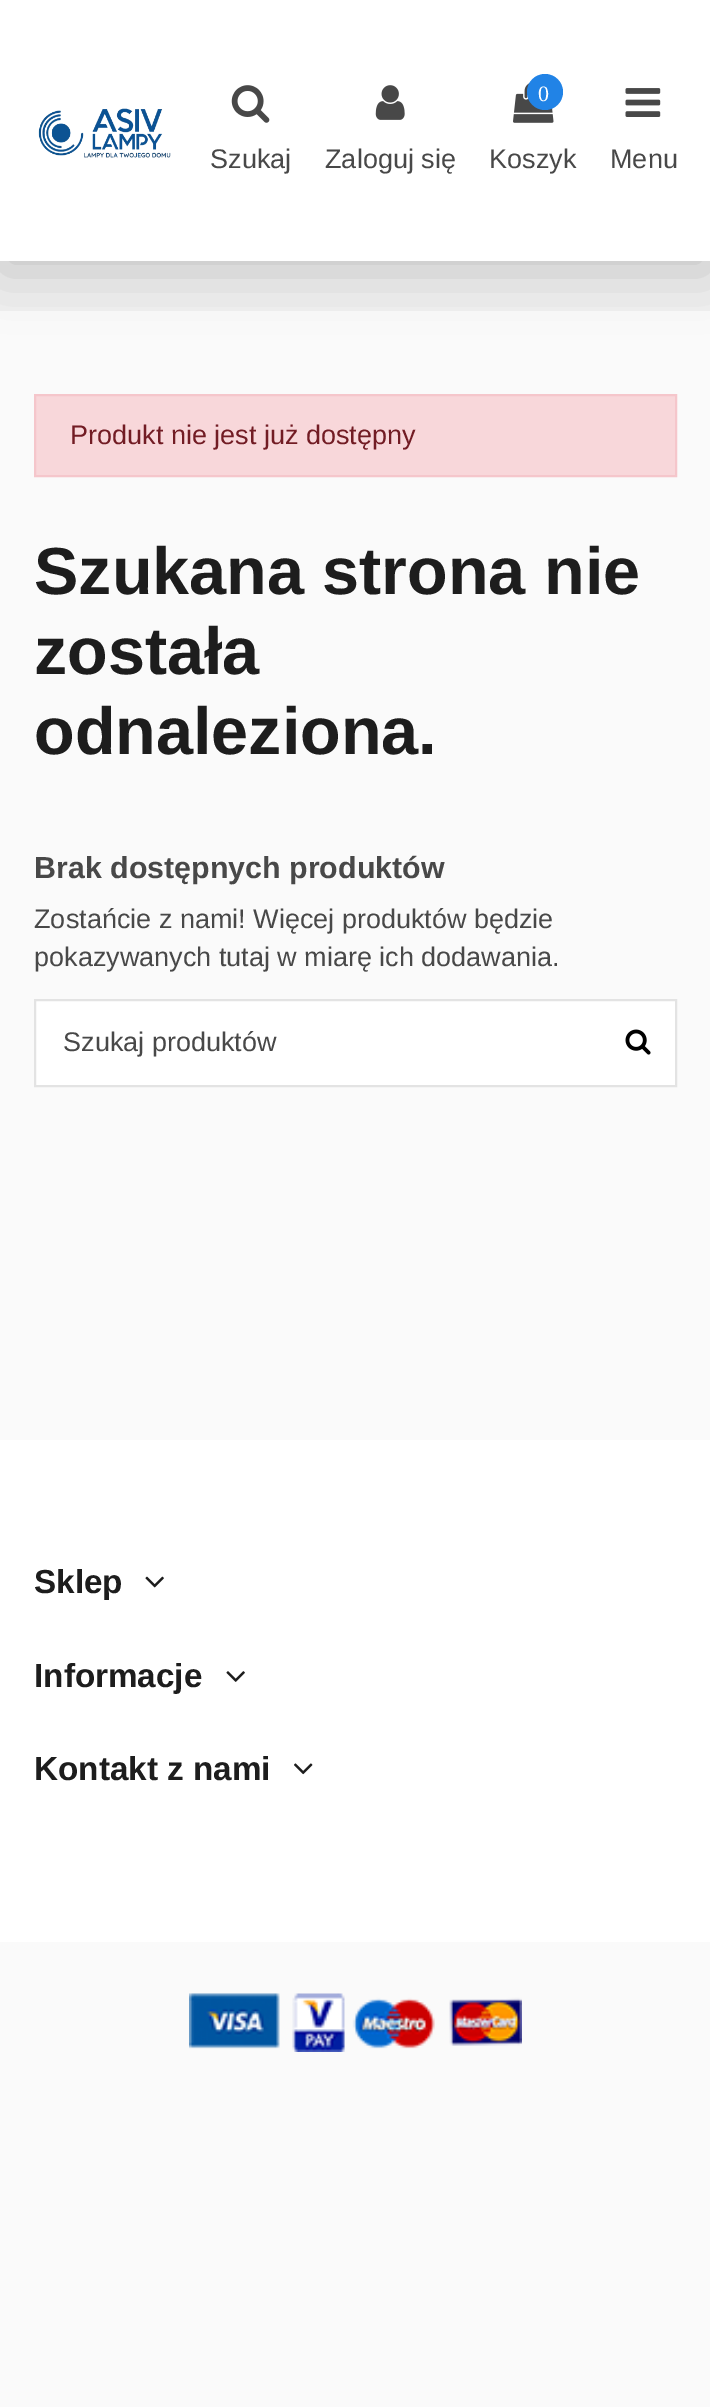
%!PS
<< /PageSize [710 2407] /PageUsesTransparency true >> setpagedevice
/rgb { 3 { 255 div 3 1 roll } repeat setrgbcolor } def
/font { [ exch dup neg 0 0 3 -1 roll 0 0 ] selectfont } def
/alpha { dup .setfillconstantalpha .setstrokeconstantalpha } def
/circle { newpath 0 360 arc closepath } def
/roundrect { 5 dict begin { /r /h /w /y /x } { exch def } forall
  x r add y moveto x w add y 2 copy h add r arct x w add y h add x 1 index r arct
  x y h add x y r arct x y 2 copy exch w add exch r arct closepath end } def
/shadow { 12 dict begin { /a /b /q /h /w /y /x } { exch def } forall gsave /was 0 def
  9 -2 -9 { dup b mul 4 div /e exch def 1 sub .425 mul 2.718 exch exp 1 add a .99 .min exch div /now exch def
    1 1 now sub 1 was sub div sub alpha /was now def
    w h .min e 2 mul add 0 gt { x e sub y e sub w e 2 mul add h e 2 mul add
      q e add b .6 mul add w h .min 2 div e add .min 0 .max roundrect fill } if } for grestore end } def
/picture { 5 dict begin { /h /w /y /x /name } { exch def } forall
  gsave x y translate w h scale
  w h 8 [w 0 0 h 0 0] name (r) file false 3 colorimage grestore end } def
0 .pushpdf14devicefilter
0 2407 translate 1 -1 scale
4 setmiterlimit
250 250 250 rgb
0 0 710 2407 rectfill
240 240 240 rgb
0 261 710 50 rectfill
0 0 0 rgb
0 11 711 261 0 28 0.18 shadow
255 255 255 rgb
0 0 710 261 rectfill
(img/1.rgb) 38 108 133 50 picture
(img/2.rgb) 513 83 41 40 picture
33 131 230 rgb
545 92 18 circle fill
(img/3.rgb) 231 85 39 38 picture
(img/4.rgb) 375 85 30 35 picture
(img/5.rgb) 625 88 36 29 picture
248 215 218 rgb
35 395 moveto 676 395 lineto 676 476 lineto 35 476 lineto closepath gsave fill grestore
245 198 203 rgb
2 setlinewidth
stroke
255 255 255 rgb
35 1000 moveto 676 1000 lineto 676 1086 lineto 35 1086 lineto closepath gsave fill grestore
227 227 227 rgb
stroke
(img/6.rgb) 625 1029 26 26 picture
255 255 255 rgb
0 1440 710 502 rectfill
(img/7.rgb) 145 1576 19 12 picture
(img/8.rgb) 226 1671 19 11 picture
(img/9.rgb) 294 1763 19 12 picture
(img/10.rgb) 189 1993 333 59 picture
/LiberationSerif-Regular 22 font
538 101 moveto (0) show
/LiberationSans-Regular 27 font
72 72 72 rgb
[
  [(Koszyk) 489 168]
  [(Szukaj) 210 168]
  [(Zaloguj się) 325 168]
  [(Menu) 610 168]
] { aload pop moveto show } forall
114 28 36 rgb
70 444 moveto (Produkt nie jest już dostępny) show
/LiberationSans-Bold 66.5 font
29 29 29 rgb
[
  [(Szukana strona nie) 34 594]
  [(została) 34 674]
  [(odnaleziona.) 34 754]
] { aload pop moveto show } forall
/LiberationSans-Bold 30.4 font
72 72 72 rgb
34 878 moveto (Brak dostępnych produktów) show
/LiberationSans-Regular 27 font
[
  [(Zostańcie z nami! Więcej produktów będzie) 34 928]
  [(pokazywanych tutaj w miarę ich dodawania.) 34 966]
  [(Szukaj produktów) 63 1051]
] { aload pop moveto show } forall
/LiberationSans-Bold 33.25 font
29 29 29 rgb
[
  [(Sklep) 34 1593]
  [(Informacje) 34 1687]
  [(Kontakt z nami) 34 1780]
] { aload pop moveto show } forall
.poppdf14devicefilter showpage
